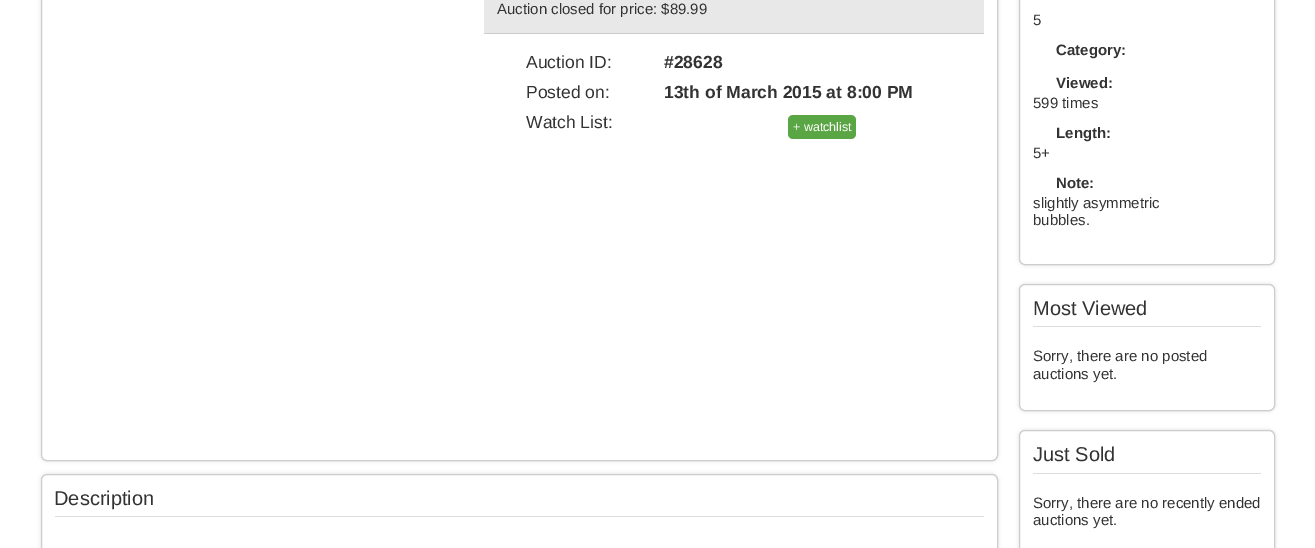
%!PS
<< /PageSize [1315 548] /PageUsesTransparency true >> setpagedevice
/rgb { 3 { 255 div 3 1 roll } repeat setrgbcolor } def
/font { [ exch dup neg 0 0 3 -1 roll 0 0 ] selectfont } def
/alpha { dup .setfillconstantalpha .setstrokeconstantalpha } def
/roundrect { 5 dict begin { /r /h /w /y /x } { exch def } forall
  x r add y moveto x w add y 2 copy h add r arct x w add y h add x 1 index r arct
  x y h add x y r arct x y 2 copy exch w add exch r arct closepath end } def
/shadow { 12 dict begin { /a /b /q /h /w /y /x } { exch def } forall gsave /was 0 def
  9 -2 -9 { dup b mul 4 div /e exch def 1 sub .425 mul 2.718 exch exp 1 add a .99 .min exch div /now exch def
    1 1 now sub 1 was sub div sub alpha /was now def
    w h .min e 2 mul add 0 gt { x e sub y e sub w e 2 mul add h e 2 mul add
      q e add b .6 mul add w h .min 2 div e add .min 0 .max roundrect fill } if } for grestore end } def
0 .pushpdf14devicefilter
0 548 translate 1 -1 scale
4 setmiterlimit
255 255 255 rgb
0 0 1315 548 rectfill
221 221 221 rgb
41 -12 957 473 6 2 1 shadow
255 255 255 rgb
41.5 -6.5 956 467 5.5 roundrect gsave fill grestore
205 205 205 rgb
stroke
232 232 232 rgb
484 0 500 33 rectfill
204 204 204 rgb
484 33 500 1 rectfill
90 166 68 rgb
788 115 68 24 5 roundrect fill
221 221 221 rgb
41 474 957 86 6 2 1 shadow
255 255 255 rgb
41.5 474.5 956 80 5.5 roundrect gsave fill grestore
205 205 205 rgb
stroke
222 222 222 rgb
55 516 929 1 rectfill
221 221 221 rgb
1019 -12 256 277 6 2 1 shadow
255 255 255 rgb
1019.5 -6.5 255 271 5.5 roundrect gsave fill grestore
205 205 205 rgb
stroke
221 221 221 rgb
1019 284 256 127 6 2 1 shadow
255 255 255 rgb
1019.5 284.5 255 126 5.5 roundrect gsave fill grestore
205 205 205 rgb
stroke
222 222 222 rgb
1033 326 228 1 rectfill
221 221 221 rgb
1019 430 256 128 6 2 1 shadow
255 255 255 rgb
1019.5 430.5 255 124 5.5 roundrect gsave fill grestore
205 205 205 rgb
stroke
222 222 222 rgb
1033 473 228 1 rectfill
/LiberationSans-Regular 15 font
51 51 51 rgb
497 14 moveto (Auction closed for price: $89.99) show
/LiberationSans-Regular 17.5 font
526 68 moveto (Auction ID:) show
/LiberationSans-Bold 17.5 font
664 68 moveto (#28628) show
/LiberationSans-Regular 17.5 font
526 98 moveto (Posted on:) show
/LiberationSans-Bold 17.5 font
664 98 moveto (13th of March 2015 at 8:00 PM) show
/LiberationSans-Regular 17.5 font
526 128 moveto (Watch List:) show
/LiberationSans-Regular 12.5 font
255 255 255 rgb
793 131 moveto (+ watchlist) show
/LiberationSans-Regular 20 font
51 51 51 rgb
54 505 moveto (Description) show
/LiberationSans-Regular 15 font
1033 25 moveto (5) show
/LiberationSans-Bold 15 font
1056 55 moveto (Category:) show
1056 88 moveto (Viewed:) show
/LiberationSans-Regular 15 font
1033 108 moveto (599 times) show
/LiberationSans-Bold 15 font
1056 138 moveto (Length:) show
/LiberationSans-Regular 15 font
1033 158 moveto (5+) show
/LiberationSans-Bold 15 font
1056 188 moveto (Note:) show
/LiberationSans-Regular 15 font
1033 208 moveto (slightly asymmetric) show
1033 225 moveto (bubbles.) show
/LiberationSans-Regular 20 font
1033 315 moveto (Most Viewed) show
/LiberationSans-Regular 15 font
1033 361 moveto (Sorry, there are no posted) show
1033 379 moveto (auctions yet.) show
/LiberationSans-Regular 20 font
1033 461 moveto (Just Sold) show
/LiberationSans-Regular 15 font
1033 508 moveto (Sorry, there are no recently ended) show
1033 525 moveto (auctions yet.) show
.poppdf14devicefilter showpage
